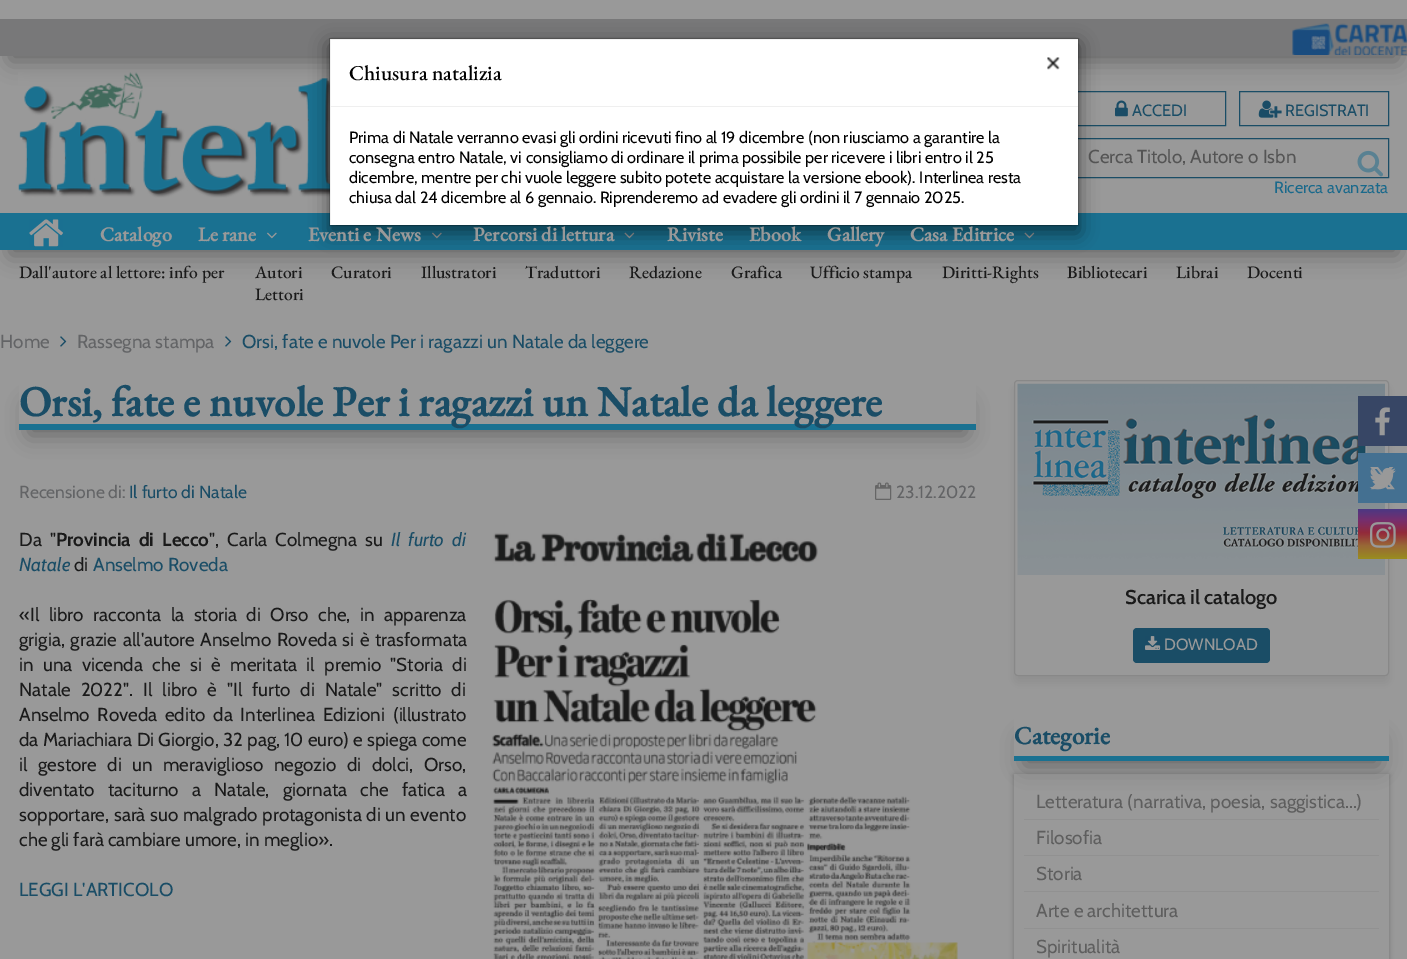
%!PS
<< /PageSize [1407 959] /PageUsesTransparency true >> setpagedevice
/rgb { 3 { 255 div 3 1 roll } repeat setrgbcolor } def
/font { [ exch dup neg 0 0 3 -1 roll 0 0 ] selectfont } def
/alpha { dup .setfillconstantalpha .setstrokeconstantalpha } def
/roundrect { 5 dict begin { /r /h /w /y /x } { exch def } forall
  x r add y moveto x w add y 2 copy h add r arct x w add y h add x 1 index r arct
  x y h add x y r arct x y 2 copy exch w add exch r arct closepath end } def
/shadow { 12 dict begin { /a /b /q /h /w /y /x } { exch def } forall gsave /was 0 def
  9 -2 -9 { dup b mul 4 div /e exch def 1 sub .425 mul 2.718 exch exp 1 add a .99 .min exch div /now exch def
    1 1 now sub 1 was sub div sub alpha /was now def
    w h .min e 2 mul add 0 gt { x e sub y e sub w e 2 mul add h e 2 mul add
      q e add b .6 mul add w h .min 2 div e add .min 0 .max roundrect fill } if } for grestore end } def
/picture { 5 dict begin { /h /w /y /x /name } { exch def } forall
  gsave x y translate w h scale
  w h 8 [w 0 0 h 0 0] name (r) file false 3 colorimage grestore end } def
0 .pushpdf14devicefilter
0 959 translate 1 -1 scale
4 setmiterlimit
153 153 153 rgb
0 0 1407 959 rectfill
102 102 102 rgb
10 44 1388 17 0 11 1 shadow
120 120 121 rgb
0 19 1407 37 rectfill
(img/3.rgb) 18 72 312 126 picture
26 77 102 rgb
1076.5 91.5 149 34 rectstroke
1076.5 138.5 312 39 rectstroke
102 102 102 rgb
10 238 1388 17 0 11 1 shadow
26 113 145 rgb
0 213 1407 37 rectfill
(img/8.rgb) 432 232 10 7 picture
(img/9.rgb) 624 232 11 7 picture
(img/9.rgb) 1024 232 11 7 picture
0 0 0 rgb
329 44 750 189 0 9.5 0.5 shadow
255 255 255 rgb
330 39 748 186 rectfill
0.2 alpha
0 0 0 rgb
329.5 38.5 749 187 rectstroke
1 alpha
239 239 239 rgb
330 106 748 1 rectfill
(img/1.rgb) 1047 57 13 13 picture
(img/2.rgb) 1292 23 115 32 picture
(img/4.rgb) 1115 100 13 17 picture
26 77 102 rgb
1239.5 91.5 149 34 rectstroke
(img/5.rgb) 1258 100 24 18 picture
(img/6.rgb) 1357 150 26 27 picture
(img/7.rgb) 29 219 34 28 picture
(img/8.rgb) 267 232 10 7 picture
(img/10.rgb) 60 336 7 11 picture
(img/10.rgb) 225 336 7 11 picture
gsave
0 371 moveto 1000 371 lineto 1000 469 lineto 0 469 lineto closepath 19 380 moveto 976 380 lineto 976 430 lineto 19 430 lineto closepath eoclip newpath
102 102 102 rgb
29 405 937 30 0 11 1 shadow
grestore
26 113 145 rgb
19 424 957 6 rectfill
(img/11.rgb) 875 482 17 18 picture
(img/12.rgb) 492 532 466 427 picture
gsave
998 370 moveto 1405 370 lineto 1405 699 lineto 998 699 lineto closepath 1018 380 moveto 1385 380 lineto 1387 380 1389 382 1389 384 curveto 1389 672 lineto 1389 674 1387 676 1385 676 curveto 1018 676 lineto 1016 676 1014 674 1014 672 curveto 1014 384 lineto 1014 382 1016 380 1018 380 curveto closepath eoclip newpath
26 26 26 rgb
1014 386 375 297 4 5 0.1 shadow
grestore
136 136 136 rgb
1014.5 380.5 374 295 3.5 roundrect stroke
(img/13.rgb) 1017 383 368 192 picture
26 77 102 rgb
1133 628 137 35 4 roundrect fill
(img/14.rgb) 1145 636 16 14 picture
gsave
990 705 moveto 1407 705 lineto 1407 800 lineto 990 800 lineto closepath 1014 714 moveto 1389 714 lineto 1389 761 lineto 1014 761 lineto closepath eoclip newpath
102 102 102 rgb
1024 739 355 27 0 11 1 shadow
grestore
26 113 145 rgb
1014 756 375 5 rectfill
gsave
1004 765 moveto 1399 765 lineto 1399 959 lineto 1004 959 lineto closepath 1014 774 moveto 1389 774 lineto 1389 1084 lineto 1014 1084 lineto closepath eoclip newpath
26 26 26 rgb
1014 775 375 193 0 3 0.3 shadow
grestore
[
  [1024 819 355 1 145 145 145]
  [1024 855 355 1 145 145 145]
  [1024 891 355 1 145 145 145]
  [1024 928 355 1 145 145 145]
  [1358 396 49 50 55 70 101]
] { aload pop rgb rectfill } forall
(img/15.rgb) 1375 407 15 29 picture
68 112 145 rgb
1358 453 49 50 rectfill
(img/17.rgb) 1370 467 25 23 picture
(img/16.rgb) 1369 467 27 23 picture
gsave 1358 509 moveto 1407 509 lineto 1407 559 lineto 1358 559 lineto closepath clip newpath
<< /ShadingType 2 /ColorSpace /DeviceRGB /Coords [1383 508 1383 558] /Extend [true true] /Function << /FunctionType 3 /Domain [0 1] /Functions [<< /FunctionType 2 /Domain [0 1] /C0 [0.282 0.224 0.522] /C1 [0.463 0.18 0.427] /N 1 >> << /FunctionType 2 /Domain [0 1] /C0 [0.463 0.18 0.427] /C1 [0.576 0.165 0.227] /N 1 >> << /FunctionType 2 /Domain [0 1] /C0 [0.576 0.165 0.227] /C1 [0.596 0.404 0.212] /N 1 >> << /FunctionType 2 /Domain [0 1] /C0 [0.596 0.404 0.212] /C1 [0.6 0.541 0.129] /N 1 >>] /Bounds [0.25 0.5 0.75] /Encode [0 1 0 1 0 1 0 1] >> >> shfill grestore
(img/18.rgb) 1370 522 26 26 picture
/EBGaramond-Medium 21.25 font
0 0 0 rgb
349 80 moveto (Chiusura natalizia) show
/Cabin-Regular 16.25 font
[
  [(Prima di Natale verranno evasi gli ordini ricevuti fino al 19 dicembre \(non riusciamo a garantire la) 349 143]
  [(consegna entro Natale, vi consigliamo di ordinare il prima possibile per ricevere i libri entro il 25) 349 163]
  [(dicembre, mentre per chi vuole leggere subito potete acquistare la versione ebook\). Interlinea resta) 349 183]
  [(chiusa dal 24 dicembre al 6 gennaio. Riprenderemo ad evadere gli ordini il 7 gennaio 2025.) 349 203]
] { aload pop moveto show } forall
26 77 102 rgb
1132 116 moveto (ACCEDI) show
1285 116 moveto (REGISTRATI) show
/Cabin-Regular 18.75 font
84 84 84 rgb
1088 163 moveto (Cerca Titolo, Autore o Isbn) show
/Cabin-Regular 16.25 font
26 105 139 rgb
1274 193 moveto (Ricerca avanzata) show
/EBGaramond-Bold 20 font
153 153 153 rgb
[
  [(Catalogo) 100 241]
  [(Le rane) 198 241]
  [(Eventi e News) 308 241]
  [(Percorsi di lettura) 473 241]
  [(Riviste) 667 241]
  [(Ebook) 749 241]
  [(Gallery) 827 241]
  [(Casa Editrice) 910 241]
] { aload pop moveto show } forall
/EBGaramond-Medium 17.5 font
26 26 26 rgb
[
  [(Dall'autore al lettore: info per) 19 278]
  [(Autori) 255 278]
  [(Curatori) 331 278]
  [(Illustratori) 421 278]
  [(Traduttori) 525 278]
  [(Redazione) 629 278]
  [(Grafica) 731 278]
  [(Ufficio stampa) 810 278]
  [(Diritti-Rights) 942 278]
  [(Bibliotecari) 1067 278]
  [(Librai) 1176 278]
  [(Docenti) 1247 278]
  [(Lettori) 255 300]
] { aload pop moveto show } forall
/Cabin-Regular 18.75 font
99 100 102 rgb
0 348 moveto (Home) show
77 348 moveto (Rassegna stampa) show
26 77 102 rgb
242 348 moveto (Orsi, fate e nuvole Per i ragazzi un Natale da leggere) show
/EBGaramond-Bold 42.5 font
19 416 moveto (Orsi, fate e nuvole Per i ragazzi un Natale da leggere) show
/Cabin-Regular 17.5 font
99 100 102 rgb
19 498 moveto (Recensione di:) show
26 77 102 rgb
129 498 moveto (Il furto di Natale) show
99 100 102 rgb
896 498 moveto (23.12.2022) show
/Cabin-Regular 18.75 font
26 26 26 rgb
19 546 moveto 4 0 32 (Da ") widthshow
/Cabin-Bold 18.75 font
56 546 moveto 4 0 32 (Provincia di Lecco) widthshow
/Cabin-Regular 18.75 font
209 546 moveto 4 0 32 (", Carla Colmegna su) widthshow
/Cabin-Italic 18.75 font
26 77 102 rgb
391 546 moveto 4 0 32 (Il furto di) widthshow
19 571 moveto (Natale) show
/Cabin-Regular 18.75 font
26 26 26 rgb
74 571 moveto (di) show
26 77 102 rgb
93 571 moveto (Anselmo Roveda) show
26 26 26 rgb
19 621 moveto 5.25 0 32 («Il libro racconta la storia di Orso che, in apparenza) widthshow
19 646 moveto 1.5 0 32 (grigia, grazie all'autore Anselmo Roveda si è trasformata) widthshow
19 671 moveto 5.25 0 32 (in una vicenda che si è meritata il premio "Storia di) widthshow
19 696 moveto 5.75 0 32 (Natale 2022". Il libro è "Il furto di Natale" scritto di) widthshow
19 721 moveto 3.5 0 32 (Anselmo Roveda edito da Interlinea Edizioni \(illustrato) widthshow
19 746 moveto (da Mariachiara Di Giorgio, 32 pag, 10 euro\) e spiega come) show
19 771 moveto 6.25 0 32 (il gestore di un meraviglioso negozio di dolci, Orso,) widthshow
19 796 moveto 9 0 32 (diventato taciturno a Natale, giornata che fatica a) widthshow
19 821 moveto 0.5 0 32 (sopportare, sarà suo malgrado protagonista di un evento) widthshow
19 846 moveto (che gli farà cambiare umore, in meglio».) show
26 77 102 rgb
19 896 moveto (LEGGI L'ARTICOLO) show
/Cabin-SemiBold 20 font
26 26 26 rgb
1125 604 moveto (Scarica il catalogo) show
/Cabin-Regular 16.25 font
153 153 153 rgb
1164 650 moveto (DOWNLOAD) show
/EBGaramond-Bold 25 font
26 77 102 rgb
1014 744 moveto (Categorie) show
/Cabin-Regular 18.75 font
94 94 94 rgb
[
  [(Letteratura \(narrativa, poesia, saggistica...\)) 1036 808]
  [(Filosofia) 1036 844]
  [(Storia) 1036 880]
  [(Arte e architettura) 1036 917]
  [(Spiritualità) 1036 953]
] { aload pop moveto show } forall
.poppdf14devicefilter showpage
